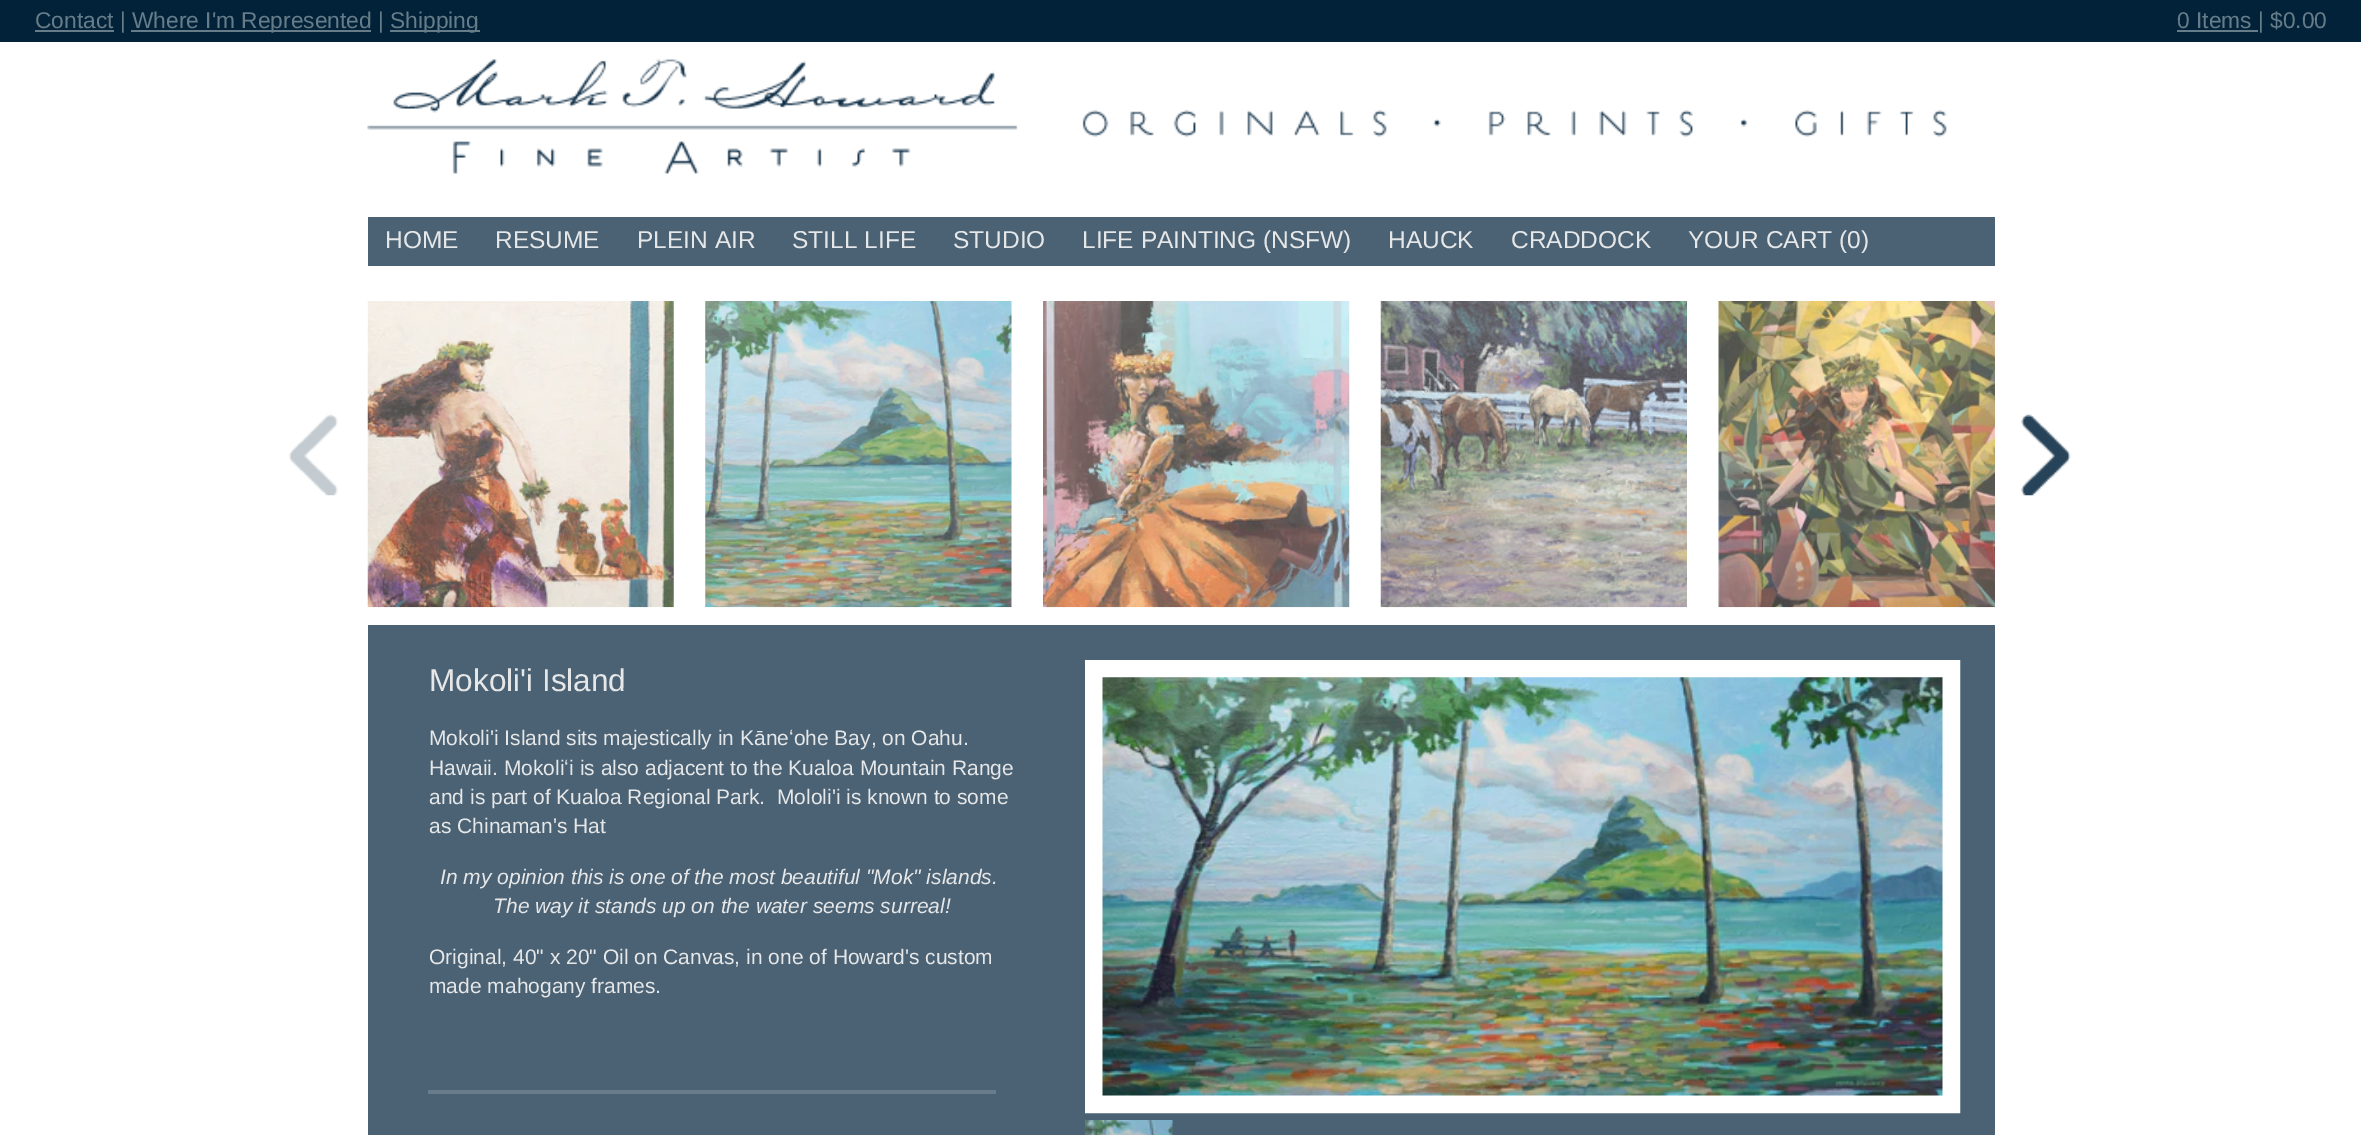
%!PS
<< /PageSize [2361 1135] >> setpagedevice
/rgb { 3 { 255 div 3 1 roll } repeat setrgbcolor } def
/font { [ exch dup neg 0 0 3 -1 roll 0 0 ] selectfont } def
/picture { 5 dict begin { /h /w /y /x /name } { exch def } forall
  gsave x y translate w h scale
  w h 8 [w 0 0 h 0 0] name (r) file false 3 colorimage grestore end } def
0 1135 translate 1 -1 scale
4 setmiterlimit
255 255 255 rgb
0 0 2361 1135 rectfill
[
  [0 0 2361 42 1 34 56]
  [35 30 79 2 103 124 137]
  [131 30 240 2 103 124 137]
  [390 30 90 2 103 124 137]
  [2177 30 81 2 103 124 137]
] { aload pop rgb rectfill } forall
(img/1.rgb) 367 59 1580 115 picture
75 98 116 rgb
368 217 1627 49 rectfill
(img/2.rgb) 288 414 50 82 picture
(img/3.rgb) 367 301 307 307 picture
(img/4.rgb) 705 301 307 307 picture
(img/5.rgb) 1043 301 307 307 picture
(img/6.rgb) 1380 301 307 307 picture
(img/7.rgb) 1718 301 277 307 picture
(img/8.rgb) 2021 414 50 82 picture
368 625 1627 510 rectfill
255 255 255 rgb
18 setlinewidth
1094 669 857 435 rectstroke
(img/9.rgb) 1102 677 841 419 picture
(img/10.rgb) 1085 1120 88 15 picture
105 124 139 rgb
428 1090 568 4 rectfill
/LiberationSans-Regular 22.75 font
103 124 137 rgb
[
  [(Contact |) 35 28]
  [(Where I'm Represented |) 132 28]
  [(Shipping) 390 28]
  [(0 Items | $0.00) 2177 28]
] { aload pop moveto show } forall
/LiberationSans-Regular 24.5 font
230 231 232 rgb
[
  [(HOME) 385 248]
  [(RESUME) 495 248]
  [(PLEIN AIR) 637 248]
  [(STILL LIFE) 792 248]
  [(STUDIO) 953 248]
  [(LIFE PAINTING \(NSFW\)) 1082 248]
  [(HAUCK) 1388 248]
  [(CRADDOCK) 1511 248]
  [(YOUR CART \(0\)) 1688 248]
] { aload pop moveto show } forall
/LiberationSans-Regular 31.5 font
429 691 moveto (Mokoli'i Island) show
/LiberationSans-Regular 21 font
[
  [(Mokoli'i Island sits majestically in Kāneʻohe Bay, on Oahu.) 429 745]
  [(Hawaii. Mokoliʻi is also adjacent to the Kualoa Mountain Range) 429 775]
  [(and is part of Kualoa Regional Park.  Mololi'i is known to some) 429 804]
  [(as Chinaman's Hat) 429 833]
] { aload pop moveto show } forall
/LiberationSans-Italic 21 font
440 884 moveto (In my opinion this is one of the most beautiful "Mok" islands.) show
493 913 moveto (The way it stands up on the water seems surreal!) show
/LiberationSans-Regular 21 font
429 964 moveto (Original, 40" x 20" Oil on Canvas, in one of Howard's custom) show
429 993 moveto (made mahogany frames.) show
showpage
